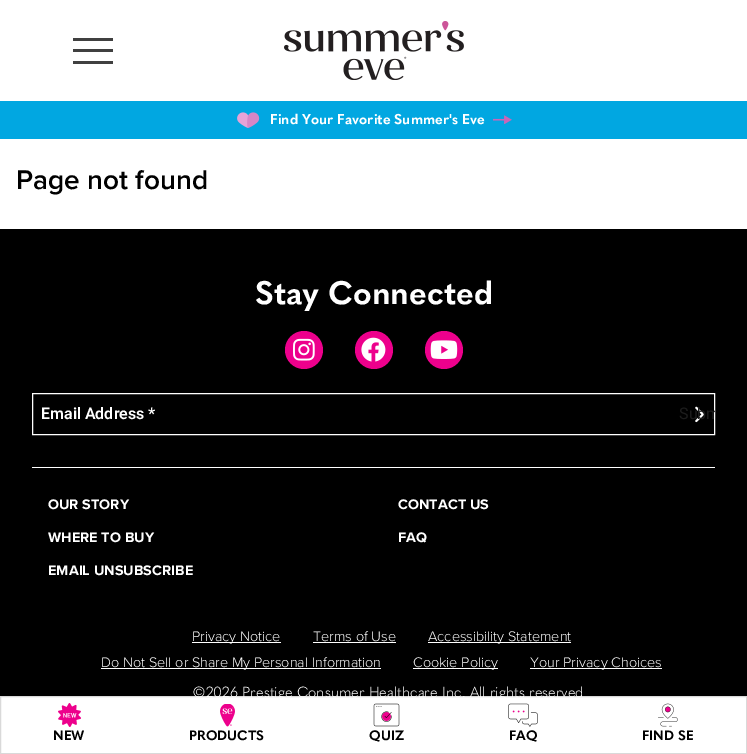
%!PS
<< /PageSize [747 754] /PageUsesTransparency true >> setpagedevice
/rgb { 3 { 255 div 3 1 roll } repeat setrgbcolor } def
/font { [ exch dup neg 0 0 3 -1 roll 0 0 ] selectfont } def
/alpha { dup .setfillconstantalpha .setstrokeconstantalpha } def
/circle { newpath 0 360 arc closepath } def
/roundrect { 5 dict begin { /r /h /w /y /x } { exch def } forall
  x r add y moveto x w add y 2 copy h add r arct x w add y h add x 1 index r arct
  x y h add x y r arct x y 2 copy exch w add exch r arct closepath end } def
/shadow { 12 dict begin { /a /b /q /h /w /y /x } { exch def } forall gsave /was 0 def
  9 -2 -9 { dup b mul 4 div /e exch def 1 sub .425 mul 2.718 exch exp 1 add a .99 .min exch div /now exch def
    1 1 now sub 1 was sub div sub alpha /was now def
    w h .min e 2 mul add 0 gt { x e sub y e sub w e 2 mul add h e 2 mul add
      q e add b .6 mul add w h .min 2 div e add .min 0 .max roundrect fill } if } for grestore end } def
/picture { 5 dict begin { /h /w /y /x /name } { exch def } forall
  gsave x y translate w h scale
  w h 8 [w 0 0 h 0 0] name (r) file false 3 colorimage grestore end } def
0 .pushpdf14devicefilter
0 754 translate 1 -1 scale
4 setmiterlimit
255 255 255 rgb
0 0 747 754 rectfill
[
  [73 38 40 3 64 64 64]
  [73 49 40 3 64 64 64]
  [73 61 40 3 64 64 64]
] { aload pop rgb rectfill } forall
(img/1.rgb) 284 21 180 59 picture
1 167 225 rgb
0 101 747 38 rectfill
(img/2.rgb) 237 112 23 16 picture
(img/3.rgb) 493 115 19 9 picture
0 0 0 rgb
0 229 747 467 rectfill
237 0 140 rgb
304 350 19 circle fill
(img/4.rgb) 293 338 22 23 picture
374 350 19 circle fill
(img/5.rgb) 361 337 25 25 picture
444 350 19 circle fill
(img/6.rgb) 430 340 28 19 picture
255 255 255 rgb
32 467 683 1 rectfill
32.5 393.5 682 41 rectstroke
(img/7.rgb) 695 406 9 17 picture
[
  [192 642 89 1 255 255 255]
  [313 642 83 1 255 255 255]
  [428 642 143 1 255 255 255]
  [101 668 280 1 255 255 255]
  [413 668 85 1 255 255 255]
  [530 668 132 1 255 255 255]
] { aload pop rgb rectfill } forall
0 0 0 rgb
0 695 747 58 0 7.5 0.19 shadow
255 255 255 rgb
0.5 696.5 moveto 746.5 696.5 lineto 746.5 753.5 lineto 0.5 753.5 lineto closepath gsave fill grestore
217 217 217 rgb
stroke
(img/8.rgb) 58 703 23 24 picture
(img/9.rgb) 220 704 15 23 picture
(img/10.rgb) 373 703 27 24 picture
(img/11.rgb) 508 703 30 24 picture
(img/12.rgb) 658 703 20 24 picture
/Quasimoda-Bold 14 font
255 255 255 rgb
270 124 moveto (Find Your Favorite Summer's Eve) show
/ProximaNova-SemiBold 28 font
0 0 0 rgb
16 189 moveto (Page not found) show
/Quasimoda-Bold 32 font
255 255 255 rgb
255 304 moveto (Stay Connected) show
/Roboto-SemiBold 16 font
41 419 moveto (Email Address *) show
gsave
673 393 42 42 rectclip
/Roboto-Regular 16 font
28 28 28 rgb
679 419 moveto (Subm) show
grestore
/ProximaNova-Bold 14.4 font
[
  [(OUR STORY) 48 509]
  [(CONTACT US) 398 509]
  [(WHERE TO BUY) 48 542]
  [(FAQ) 398 542]
  [(EMAIL UNSUBSCRIBE) 48 575]
] { aload pop moveto show } forall
/ProximaNova-Light 14.4 font
[
  [(Privacy Notice) 192 641]
  [(Terms of Use) 313 641]
  [(Accessibility Statement) 428 641]
  [(Do Not Sell or Share My Personal Information) 101 667]
  [(Cookie Policy) 413 667]
  [(Your Privacy Choices) 530 667]
] { aload pop moveto show } forall
/Quasimoda-Light 14.4 font
192 697 moveto (©2026 Prestige Consumer Healthcare Inc. All rights reserved) show
/Quasimoda-Bold 13.5 font
0 0 0 rgb
[
  [(NEW) 53 740]
  [(PRODUCTS) 189 740]
  [(QUIZ) 369 740]
  [(FAQ) 509 740]
  [(FIND SE) 642 740]
] { aload pop moveto show } forall
.poppdf14devicefilter showpage
